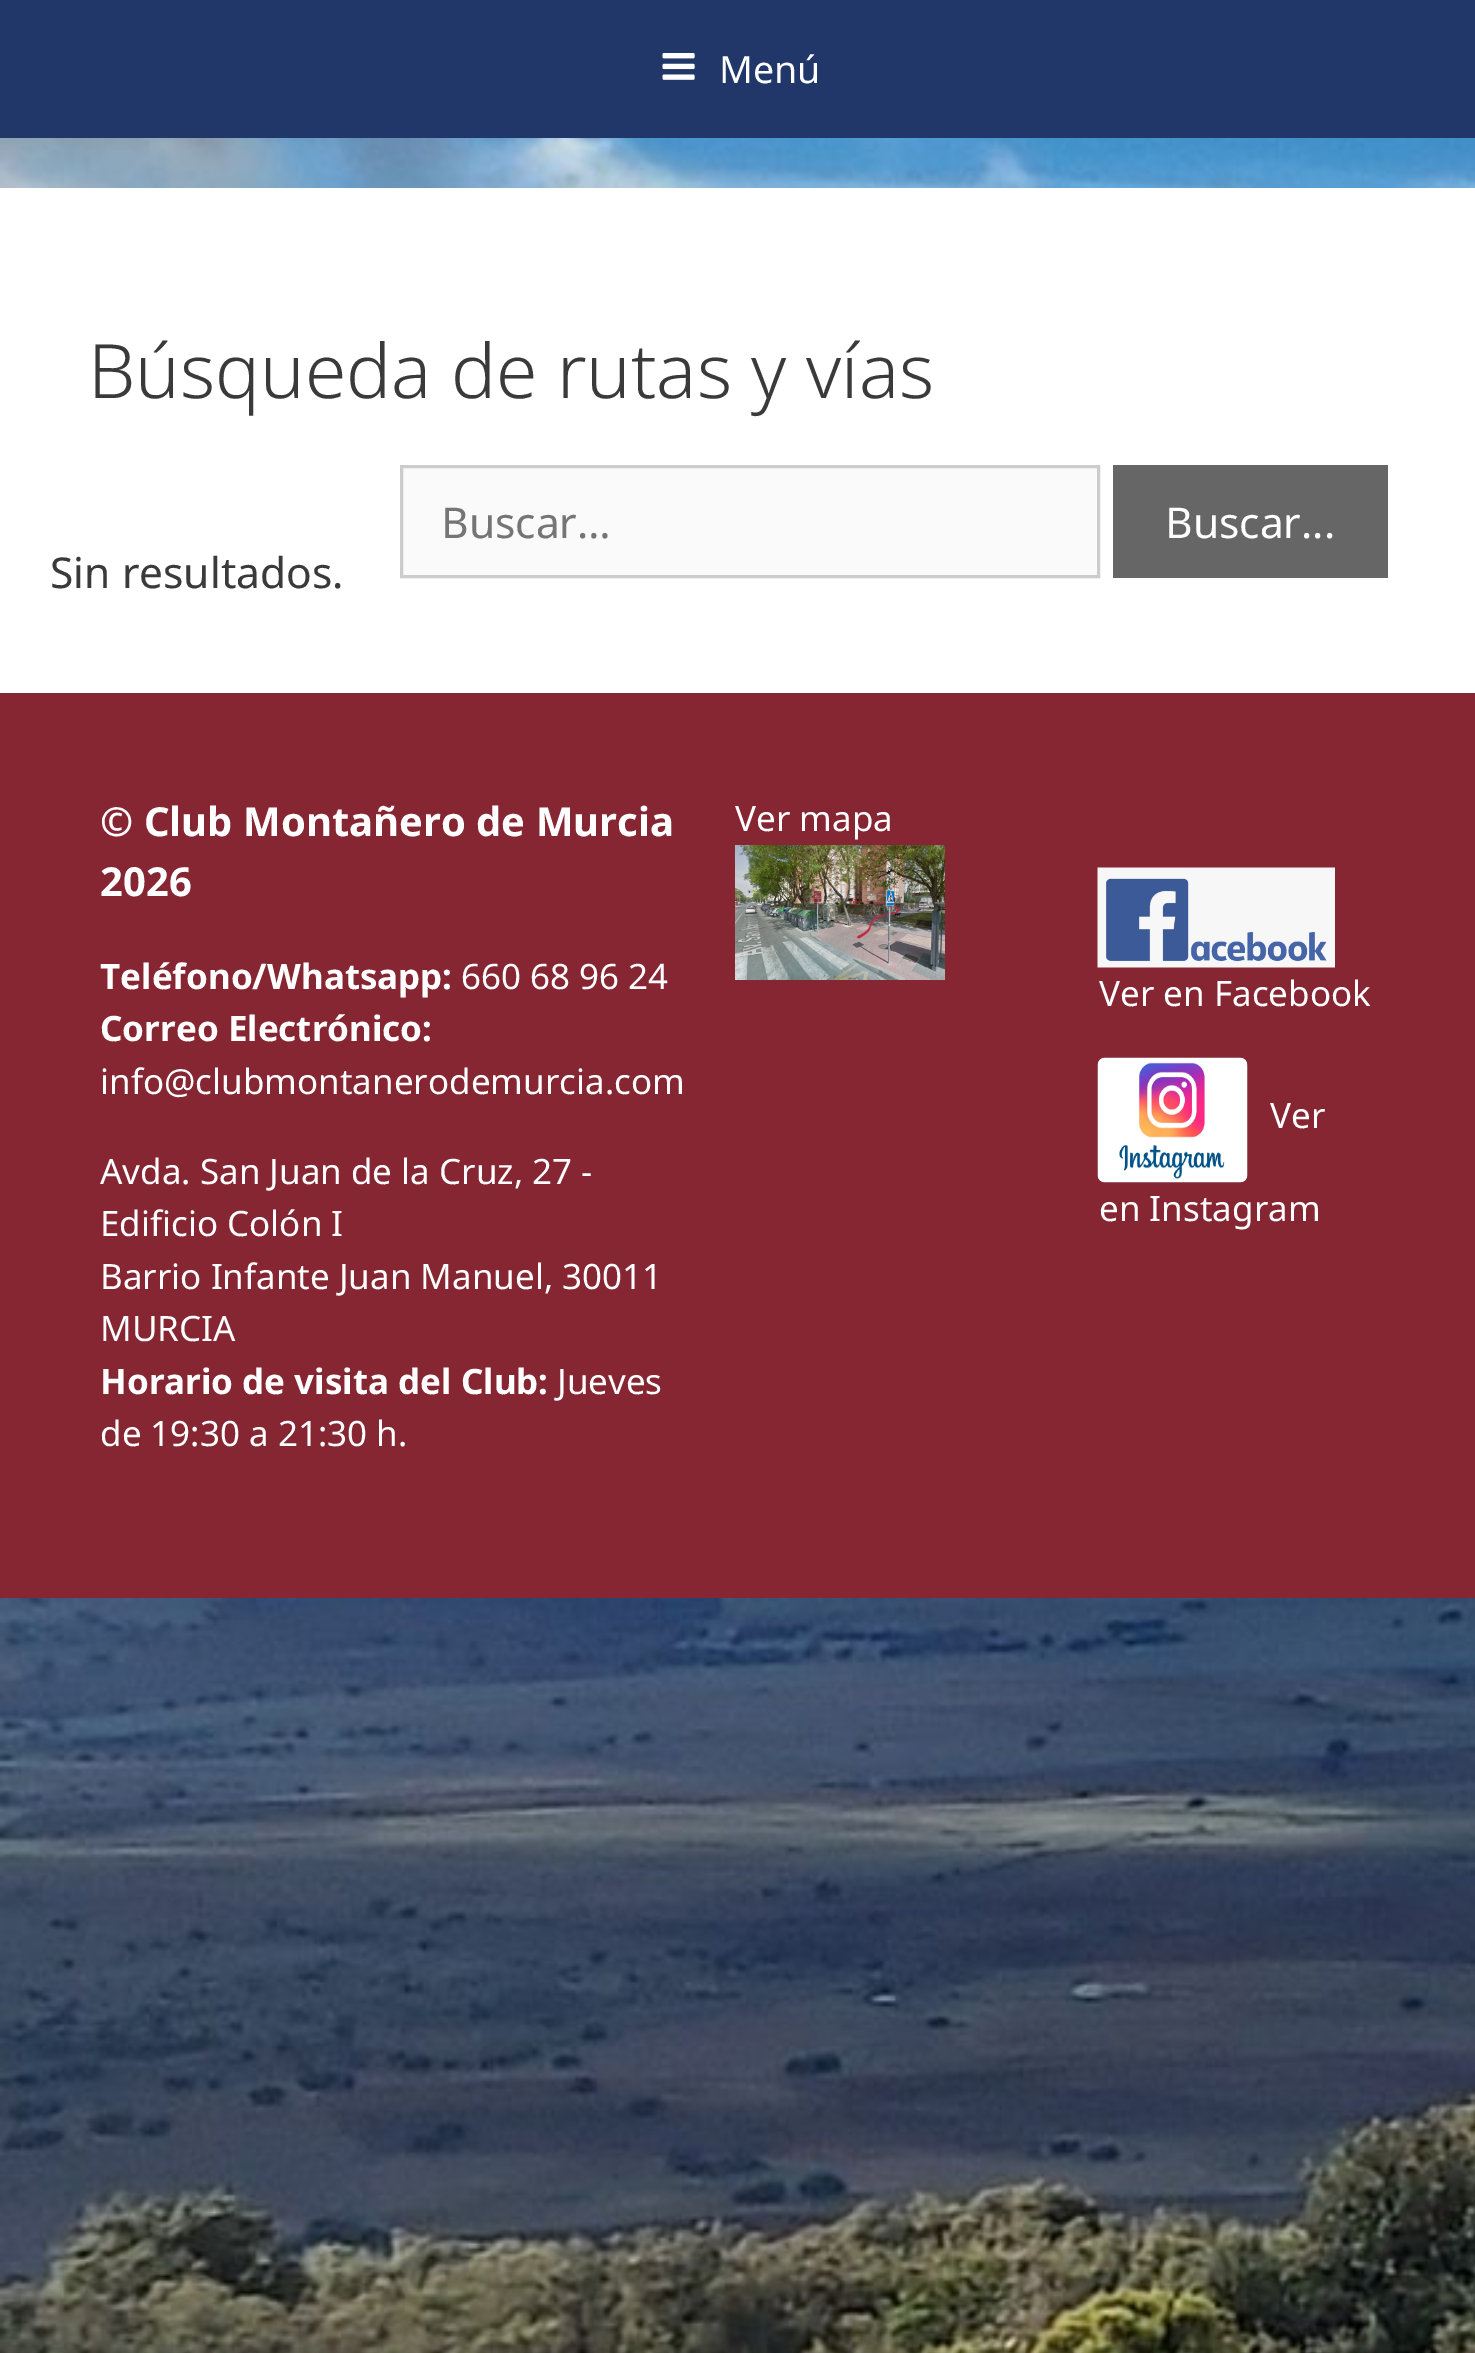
%!PS
<< /PageSize [1475 2353] >> setpagedevice
/rgb { 3 { 255 div 3 1 roll } repeat setrgbcolor } def
/font { [ exch dup neg 0 0 3 -1 roll 0 0 ] selectfont } def
/picture { 5 dict begin { /h /w /y /x /name } { exch def } forall
  gsave x y translate w h scale
  w h 8 [w 0 0 h 0 0] name (r) file false 3 colorimage grestore end } def
0 2353 translate 1 -1 scale
4 setmiterlimit
255 255 255 rgb
0 0 1475 2353 rectfill
(img/1.rgb) 0 138 1475 2215 picture
33 55 105 rgb
0 0 1475 138 rectfill
(img/2.rgb) 662 53 33 27 picture
255 255 255 rgb
0 188 1475 505 rectfill
250 250 250 rgb
401.5 466.5 moveto 1098.5 466.5 lineto 1098.5 576.5 lineto 401.5 576.5 lineto closepath gsave fill grestore
204 204 204 rgb
3 setlinewidth
stroke
102 102 102 rgb
1113 465 275 113 rectfill
134 38 51 rgb
0 693 1475 905 rectfill
(img/3.rgb) 735 845 210 135 picture
(img/4.rgb) 1097 867 238 101 picture
(img/5.rgb) 1097 1057 151 126 picture
/NotoSans-Regular 37.5 font
255 255 255 rgb
719 83 moveto (Menú) show
/NotoSans-Light 75 font
58 58 58 rgb
88 398 moveto (Búsqueda de rutas y vías) show
/NotoSans-Regular 42.5 font
117 117 117 rgb
441 538 moveto (Buscar…) show
255 255 255 rgb
1165 538 moveto (Buscar...) show
58 58 58 rgb
50 588 moveto (Sin resultados.) show
/NotoSans-Bold 40 font
255 255 255 rgb
100 836 moveto (© Club Montañero de Murcia) show
100 896 moveto (2026) show
/NotoSans-Bold 35 font
100 989 moveto (Teléfono/Whatsapp:) show
/NotoSans-Regular 35 font
461 989 moveto (660 68 96 24) show
/NotoSans-Bold 35 font
100 1041 moveto (Correo Electrónico:) show
/NotoSans-Regular 35 font
[
  [(info@clubmontanerodemurcia.com) 100 1094]
  [(Avda. San Juan de la Cruz, 27 -) 100 1184]
  [(Edificio Colón I) 100 1236]
  [(Barrio Infante Juan Manuel, 30011) 100 1289]
  [(MURCIA) 100 1341]
] { aload pop moveto show } forall
/NotoSans-Bold 35 font
100 1394 moveto (Horario de visita del Club:) show
/NotoSans-Regular 35 font
[
  [(Jueves) 557 1394]
  [(de 19:30 a 21:30 h.) 100 1446]
  [(Ver mapa) 735 831]
  [(Ver en Facebook) 1099 1006]
  [(Ver) 1270 1128]
  [(en Instagram) 1099 1221]
] { aload pop moveto show } forall
showpage
